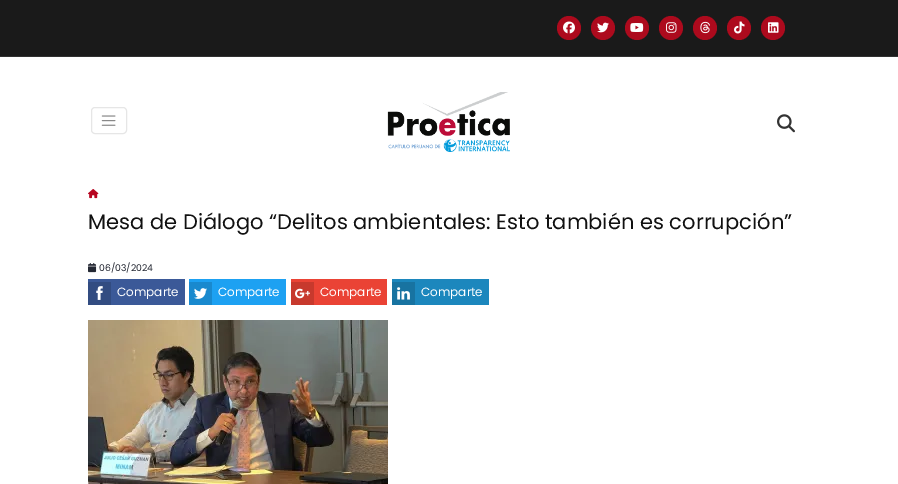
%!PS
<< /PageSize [898 484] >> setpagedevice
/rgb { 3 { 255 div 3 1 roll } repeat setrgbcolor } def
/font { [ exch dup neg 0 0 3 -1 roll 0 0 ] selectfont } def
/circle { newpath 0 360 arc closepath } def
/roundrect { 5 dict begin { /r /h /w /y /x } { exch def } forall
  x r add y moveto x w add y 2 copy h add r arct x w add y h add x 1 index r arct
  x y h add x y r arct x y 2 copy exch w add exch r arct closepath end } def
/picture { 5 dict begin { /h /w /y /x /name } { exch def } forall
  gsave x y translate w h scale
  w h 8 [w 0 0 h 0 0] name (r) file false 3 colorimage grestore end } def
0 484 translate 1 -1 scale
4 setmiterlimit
255 255 255 rgb
0 0 898 484 rectfill
26 26 26 rgb
0 0 898 56 rectfill
49 49 49 rgb
0 56 898 1 rectfill
173 10 29 rgb
569 28 12 circle fill
(img/1.rgb) 563 21 12 13 picture
603 28 12 circle fill
(img/2.rgb) 597 22 12 11 picture
637 28 12 circle fill
(img/3.rgb) 630 23 14 9 picture
671 28 12 circle fill
(img/4.rgb) 666 22 11 11 picture
705 28 12 circle fill
(img/5.rgb) 700 21 10 13 picture
739 28 12 circle fill
(img/6.rgb) 734 21 11 13 picture
773 28 12 circle fill
(img/7.rgb) 768 22 11 11 picture
230 230 230 rgb
91.5 107.5 35 26 3.5 roundrect stroke
(img/8.rgb) 101 115 15 11 picture
(img/9.rgb) 387 92 123 60 picture
(img/10.rgb) 777 114 18 19 picture
(img/11.rgb) 88 189 11 10 picture
(img/12.rgb) 88 263 9 10 picture
59 89 152 rgb
88 279 97 26 rectfill
50 76 129 rgb
88 282 23 23 rectfill
(img/13.rgb) 96 286 7 14 picture
29 161 242 rgb
189 279 97 26 rectfill
25 137 206 rgb
189 282 23 23 rectfill
(img/14.rgb) 194 288 13 11 picture
234 67 53 rgb
291 279 96 26 rectfill
199 57 45 rgb
291 282 23 23 rectfill
(img/15.rgb) 295 288 15 11 picture
28 135 189 rgb
392 279 97 26 rectfill
24 115 161 rgb
392 282 23 23 rectfill
(img/16.rgb) 397 287 13 13 picture
(img/17.rgb) 88 320 300 164 picture
/Poppins-Regular 21.05 font
17 17 17 rgb
88 229 moveto (Mesa de Diálogo “Delitos ambientales: Esto también es corrupción”) show
/Poppins-Regular 9.25 font
36 40 51 rgb
99 271 moveto (06/03/2024) show
/Poppins-Regular 12 font
255 255 255 rgb
[
  [(Comparte) 117 296]
  [(Comparte) 218 296]
  [(Comparte) 320 296]
  [(Comparte) 421 296]
] { aload pop moveto show } forall
showpage
